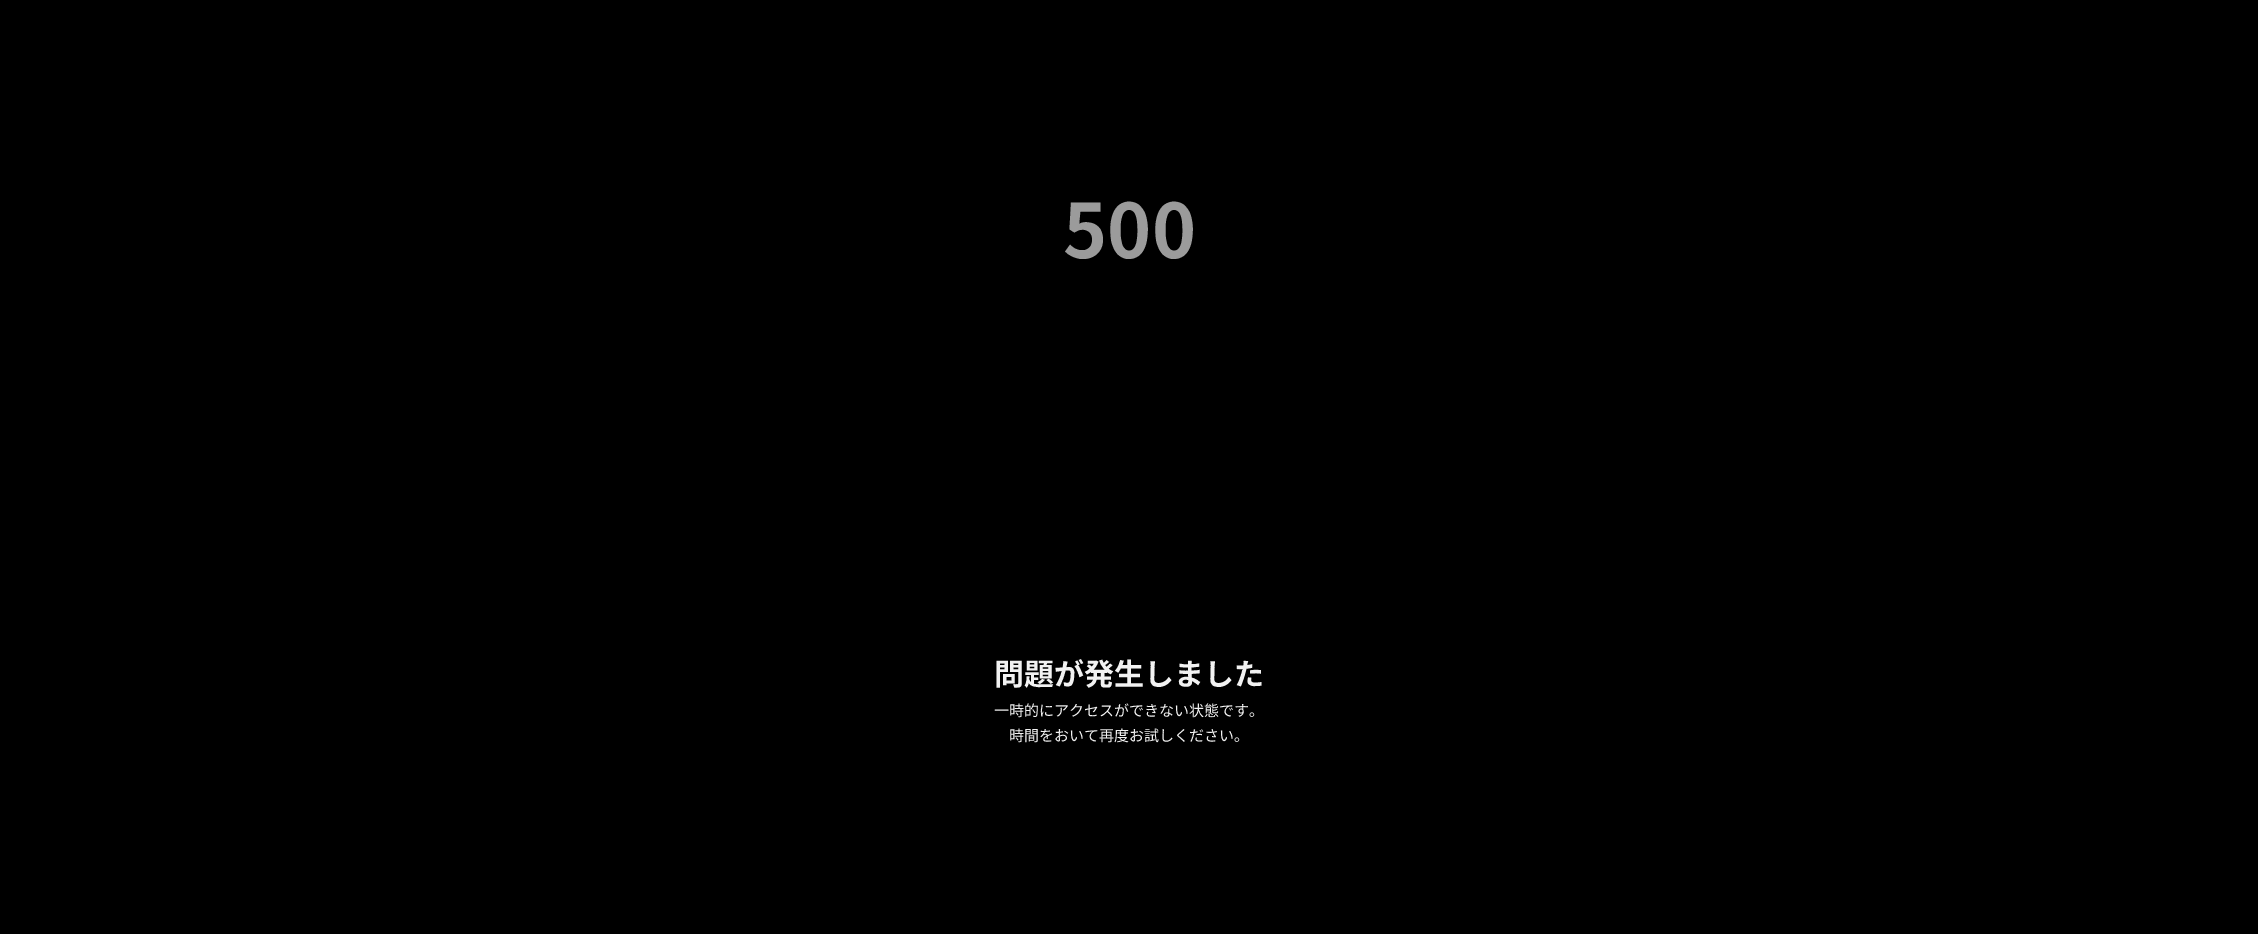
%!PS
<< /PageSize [2258 934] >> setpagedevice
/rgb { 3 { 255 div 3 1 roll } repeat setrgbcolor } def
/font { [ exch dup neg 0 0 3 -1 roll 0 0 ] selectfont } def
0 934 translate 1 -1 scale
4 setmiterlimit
0 0 0 rgb
0 0 2258 934 rectfill
/NotoSansJP-Bold 75 font
155 155 155 rgb
1063 258 moveto (500) show
/NotoSansJP-Bold 30 font
242 242 242 rgb
994 685 moveto (問題が発生しました) show
/NotoSansJP-Regular 15 font
994 716 moveto (一時的にアクセスができない状態です。) show
1009 741 moveto (時間をおいて再度お試しください。) show
showpage
